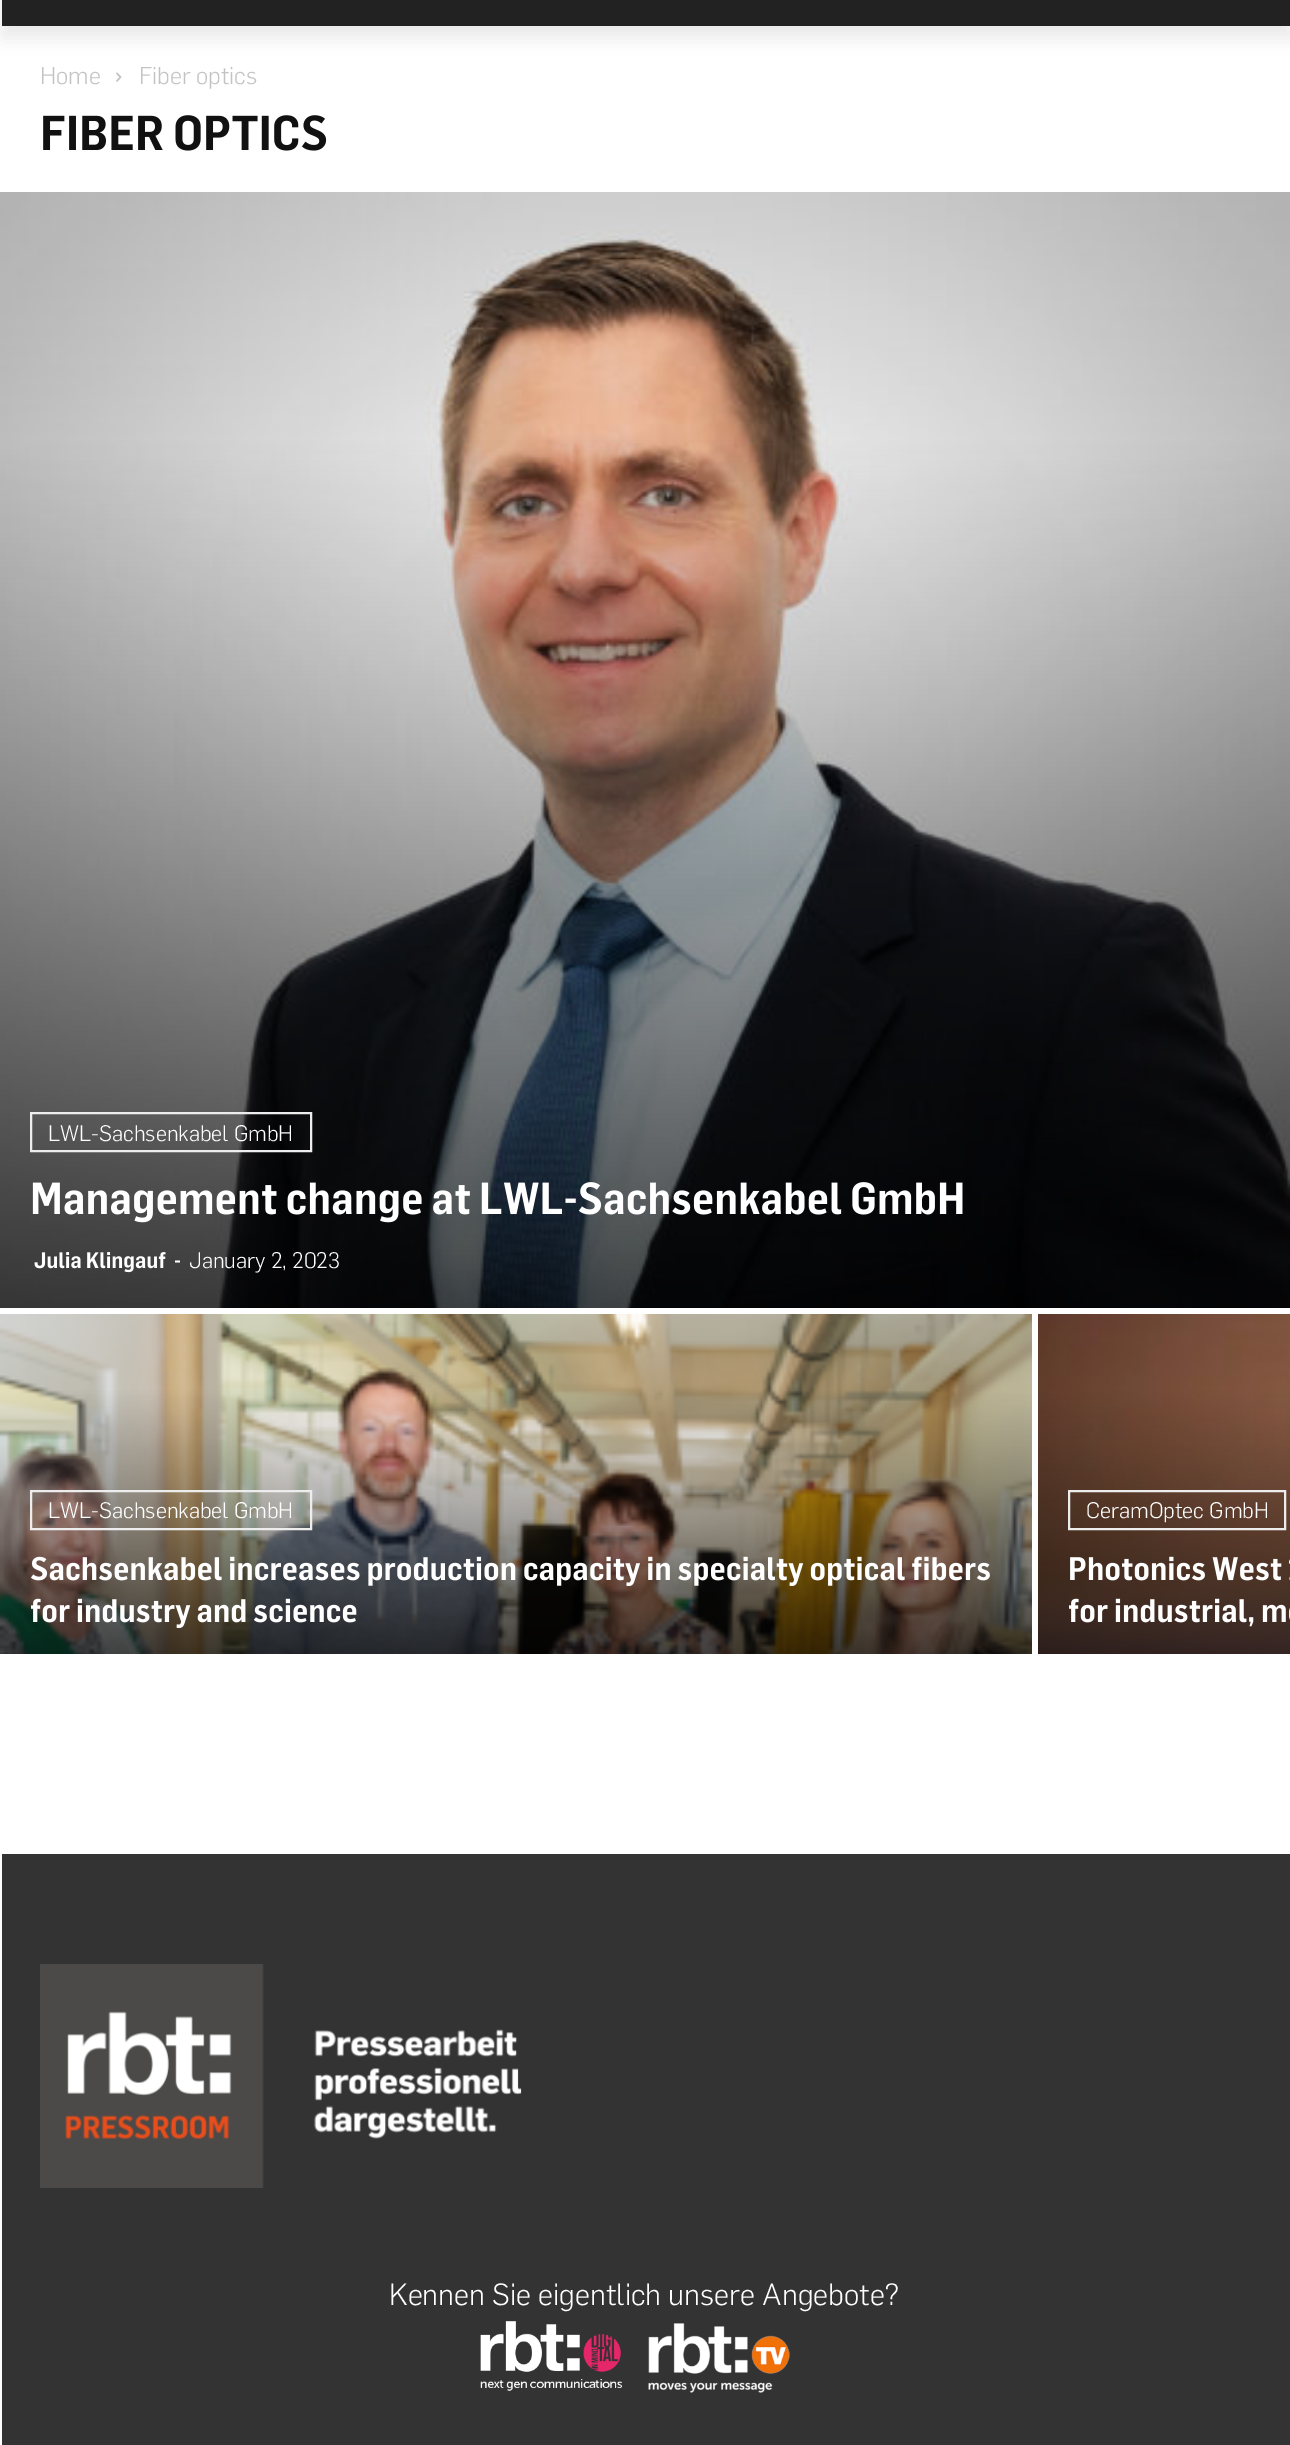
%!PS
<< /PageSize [1290 2445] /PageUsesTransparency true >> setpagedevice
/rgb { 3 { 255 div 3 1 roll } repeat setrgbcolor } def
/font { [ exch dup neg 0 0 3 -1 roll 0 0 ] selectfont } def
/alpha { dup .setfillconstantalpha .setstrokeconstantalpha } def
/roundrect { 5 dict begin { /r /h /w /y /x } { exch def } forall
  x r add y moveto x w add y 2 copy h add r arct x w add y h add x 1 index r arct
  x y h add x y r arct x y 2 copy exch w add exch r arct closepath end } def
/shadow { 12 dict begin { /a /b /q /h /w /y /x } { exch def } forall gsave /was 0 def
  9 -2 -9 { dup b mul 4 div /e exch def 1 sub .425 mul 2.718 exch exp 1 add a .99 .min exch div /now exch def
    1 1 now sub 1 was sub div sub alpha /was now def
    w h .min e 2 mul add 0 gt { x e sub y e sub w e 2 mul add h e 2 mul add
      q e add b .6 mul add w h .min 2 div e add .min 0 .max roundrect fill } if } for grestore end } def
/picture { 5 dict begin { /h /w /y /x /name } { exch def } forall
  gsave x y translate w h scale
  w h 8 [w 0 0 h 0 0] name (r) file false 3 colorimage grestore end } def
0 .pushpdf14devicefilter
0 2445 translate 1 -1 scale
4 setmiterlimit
255 255 255 rgb
0 0 1290 2445 rectfill
34 34 34 rgb
2 0 1288 26 rectfill
gsave
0 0 moveto 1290 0 lineto 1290 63 lineto 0 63 lineto closepath 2 -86 moveto 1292 -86 lineto 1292 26 lineto 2 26 lineto closepath eoclip newpath
0 0 0 rgb
2 -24 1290 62 0 8 0.08 shadow
grestore
(img/1.rgb) 116 72 6 10 picture
(img/2.rgb) 43 115 284 36 picture
(img/3.rgb) 0 192 1290 1116 picture
237 237 237 rgb
2 setlinewidth
31 1113 280 38 rectstroke
(img/4.rgb) 32 1182 931 41 picture
(img/5.rgb) 34 1252 132 21 picture
255 255 255 rgb
175 1262.5 moveto 175 1260.5 lineto 180 1260.5 lineto 180 1262.5 lineto closepath fill
(img/6.rgb) 0 1314 1032 340 picture
237 237 237 rgb
31 1491 280 38 rectstroke
(img/7.rgb) 31 1556 959 30 picture
(img/8.rgb) 31 1598 326 30 picture
(img/9.rgb) 1038 1314 252 340 picture
1069 1491 216 38 rectstroke
(img/10.rgb) 1070 1556 220 25 picture
(img/11.rgb) 1069 1598 221 29 picture
51 51 51 rgb
2 1854 1288 591 rectfill
(img/12.rgb) 40 1964 482 224 picture
(img/13.rgb) 480 2321 142 70 picture
(img/14.rgb) 648 2323 142 70 picture
/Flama-Light 24 font
195 195 195 rgb
40 84 moveto (Home) show
139 84 moveto (Fiber optics) show
/Flama-Light 22 font
255 255 255 rgb
[
  [(LWL-Sachsenkabel GmbH) 48 1141]
  [(January 2, 2023) 189 1268]
  [(LWL-Sachsenkabel GmbH) 48 1518]
  [(CeramOptec GmbH) 1086 1518]
] { aload pop moveto show } forall
/Flama-Light 30 font
389 2305 moveto (Kennen Sie eigentlich unsere Angebote?) show
.poppdf14devicefilter showpage
